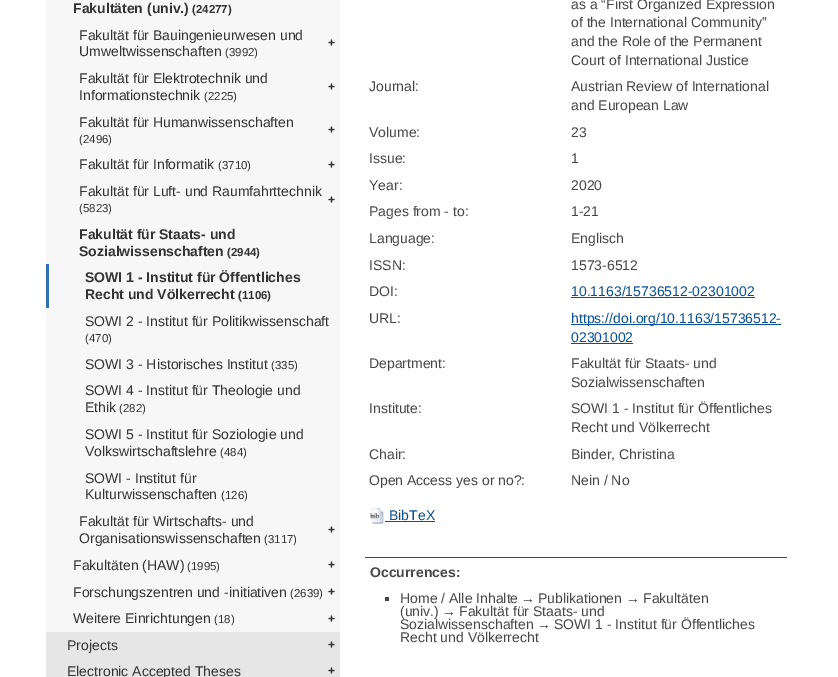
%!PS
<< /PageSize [838 677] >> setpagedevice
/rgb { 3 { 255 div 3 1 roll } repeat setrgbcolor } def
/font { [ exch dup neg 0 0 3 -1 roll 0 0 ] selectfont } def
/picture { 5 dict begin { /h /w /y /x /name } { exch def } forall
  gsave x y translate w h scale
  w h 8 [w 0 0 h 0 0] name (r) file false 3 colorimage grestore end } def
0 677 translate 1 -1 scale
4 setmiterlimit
255 255 255 rgb
0 0 838 677 rectfill
230 230 230 rgb
46 632 294 45 rectfill
247 247 247 rgb
46 0 294 264 rectfill
(img/1.rgb) 328 39 7 7 picture
(img/1.rgb) 328 83 7 7 picture
(img/1.rgb) 328 126 7 7 picture
(img/1.rgb) 328 161 7 7 picture
(img/1.rgb) 328 196 7 7 picture
[
  [49 264 291 44 247 247 247]
  [46 264 3 44 48 112 179]
  [46 308 294 324 247 247 247]
] { aload pop rgb rectfill } forall
(img/1.rgb) 328 526 7 7 picture
(img/1.rgb) 328 561 7 7 picture
(img/1.rgb) 328 588 7 7 picture
(img/1.rgb) 328 615 7 7 picture
(img/2.rgb) 328 641 7 7 picture
(img/2.rgb) 328 667 7 7 picture
[
  [571 297 184 1 10 80 150]
  [571 324 210 1 10 80 150]
  [571 343 62 1 10 80 150]
] { aload pop rgb rectfill } forall
(img/3.rgb) 370 508 14 16 picture
[
  [385 521 50 1 10 80 150]
  [365 557 422 1 71 71 71]
  [385 597 4 4 71 71 71]
] { aload pop rgb rectfill } forall
/LiberationSans-Bold 14 font
51 51 51 rgb
73 13 moveto (Fakultäten \(univ.\)) show
/LiberationSans-Bold 11.5 font
192 13 moveto (\(24277\)) show
/LiberationSans-Regular 14 font
79 40 moveto (Fakultät für Bauingenieurwesen und) show
79 56 moveto (Umweltwissenschaften) show
/LiberationSans-Regular 11.5 font
225 56 moveto (\(3992\)) show
/LiberationSans-Regular 14 font
79 83 moveto (Fakultät für Elektrotechnik und) show
79 100 moveto (Informationstechnik) show
/LiberationSans-Regular 11.5 font
204 100 moveto (\(2225\)) show
/LiberationSans-Regular 14 font
79 127 moveto (Fakultät für Humanwissenschaften) show
/LiberationSans-Regular 11.5 font
79 143 moveto (\(2496\)) show
/LiberationSans-Regular 14 font
79 169 moveto (Fakultät für Informatik) show
/LiberationSans-Regular 11.5 font
218 169 moveto (\(3710\)) show
/LiberationSans-Regular 14 font
79 196 moveto (Fakultät für Luft- und Raumfahrttechnik) show
/LiberationSans-Regular 11.5 font
79 212 moveto (\(5823\)) show
/LiberationSans-Bold 14 font
79 239 moveto (Fakultät für Staats- und) show
79 256 moveto (Sozialwissenschaften) show
/LiberationSans-Bold 11.5 font
227 256 moveto (\(2944\)) show
/LiberationSans-Bold 14 font
85 282 moveto (SOWI 1 - Institut für Öffentliches) show
85 299 moveto (Recht und Völkerrecht) show
/LiberationSans-Bold 11.5 font
238 299 moveto (\(1106\)) show
/LiberationSans-Regular 14 font
85 326 moveto (SOWI 2 - Institut für Politikwissenschaft) show
/LiberationSans-Regular 11.5 font
85 342 moveto (\(470\)) show
/LiberationSans-Regular 14 font
85 369 moveto (SOWI 3 - Historisches Institut) show
/LiberationSans-Regular 11.5 font
271 369 moveto (\(335\)) show
/LiberationSans-Regular 14 font
85 395 moveto (SOWI 4 - Institut für Theologie und) show
85 412 moveto (Ethik) show
/LiberationSans-Regular 11.5 font
119 412 moveto (\(282\)) show
/LiberationSans-Regular 14 font
85 439 moveto (SOWI 5 - Institut für Soziologie und) show
85 456 moveto (Volkswirtschaftslehre) show
/LiberationSans-Regular 11.5 font
220 456 moveto (\(484\)) show
/LiberationSans-Regular 14 font
85 483 moveto (SOWI - Institut für) show
85 499 moveto (Kulturwissenschaften) show
/LiberationSans-Regular 11.5 font
221 499 moveto (\(126\)) show
/LiberationSans-Regular 14 font
79 526 moveto (Fakultät für Wirtschafts- und) show
79 543 moveto (Organisationswissenschaften) show
/LiberationSans-Regular 11.5 font
264 543 moveto (\(3117\)) show
/LiberationSans-Regular 14 font
73 570 moveto (Fakultäten \(HAW\)) show
/LiberationSans-Regular 11.5 font
187 570 moveto (\(1995\)) show
/LiberationSans-Regular 14 font
73 597 moveto (Forschungszentren und -initiativen) show
/LiberationSans-Regular 11.5 font
290 597 moveto (\(2639\)) show
/LiberationSans-Regular 14 font
73 623 moveto (Weitere Einrichtungen) show
/LiberationSans-Regular 11.5 font
214 623 moveto (\(18\)) show
/LiberationSans-Regular 14 font
67 650 moveto (Projects) show
67 676 moveto (Electronic Accepted Theses) show
71 71 71 rgb
[
  [(as a “First Organized Expression) 571 9]
  [(of the International Community”) 571 27]
  [(and the Role of the Permanent) 571 46]
  [(Court of International Justice) 571 65]
  [(Journal:) 369 91]
  [(Austrian Review of International) 571 91]
  [(and European Law) 571 110]
  [(Volume:) 369 137]
  [(23) 571 137]
  [(Issue:) 369 163]
  [(1) 571 163]
  [(Year:) 369 190]
  [(2020) 571 190]
  [(Pages from - to:) 369 216]
  [(1-21) 571 216]
  [(Language:) 369 243]
  [(Englisch) 571 243]
  [(ISSN:) 369 270]
  [(1573-6512) 571 270]
  [(DOI:) 369 296]
] { aload pop moveto show } forall
10 80 150 rgb
571 296 moveto (10.1163/15736512-02301002) show
71 71 71 rgb
369 323 moveto (URL:) show
10 80 150 rgb
571 323 moveto (https://doi.org/10.1163/15736512-) show
571 342 moveto (02301002) show
71 71 71 rgb
[
  [(Department:) 369 368]
  [(Fakultät für Staats- und) 571 368]
  [(Sozialwissenschaften) 571 387]
  [(Institute:) 369 413]
  [(SOWI 1 - Institut für Öffentliches) 571 413]
  [(Recht und Völkerrecht) 571 432]
  [(Chair:) 369 459]
  [(Binder, Christina) 571 459]
  [(Open Access yes or no?:) 369 485]
  [(Nein / No) 571 485]
] { aload pop moveto show } forall
10 80 150 rgb
389 520 moveto (BibTeX) show
/LiberationSans-Bold 14 font
71 71 71 rgb
370 577 moveto (Occurrences:) show
/LiberationSans-Regular 14 font
[
  [(Home / Alle Inhalte) 400 603]
  [(→) 521 603]
  [(Publikationen) 538 603]
  [(→) 626 603]
  [(Fakultäten) 643 603]
  [(\(univ.\)) 400 616]
  [(→) 442 616]
  [(Fakultät für Staats- und) 459 616]
  [(Sozialwissenschaften) 400 629]
  [(→) 537 629]
  [(SOWI 1 - Institut für Öffentliches) 554 629]
  [(Recht und Völkerrecht) 400 642]
] { aload pop moveto show } forall
showpage
